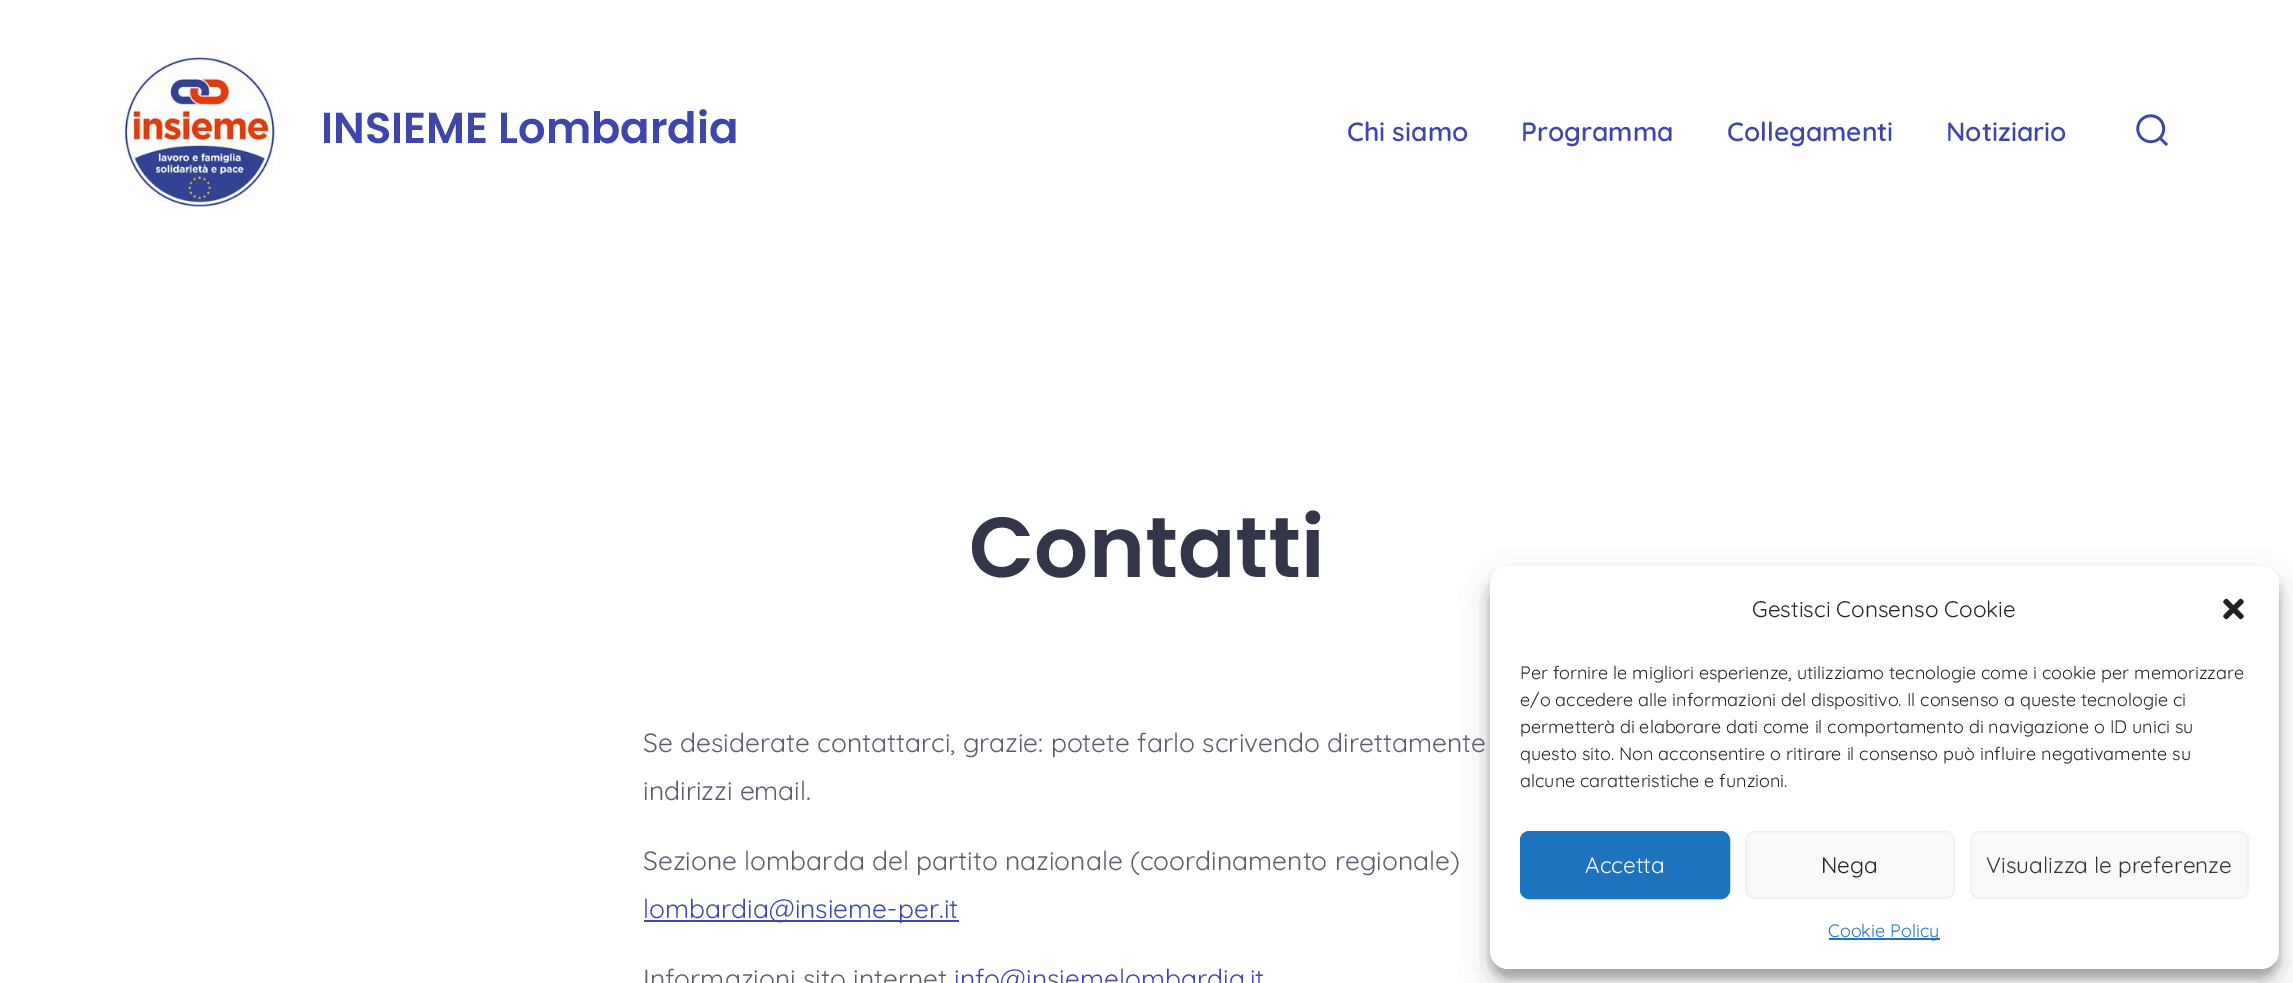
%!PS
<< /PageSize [2293 983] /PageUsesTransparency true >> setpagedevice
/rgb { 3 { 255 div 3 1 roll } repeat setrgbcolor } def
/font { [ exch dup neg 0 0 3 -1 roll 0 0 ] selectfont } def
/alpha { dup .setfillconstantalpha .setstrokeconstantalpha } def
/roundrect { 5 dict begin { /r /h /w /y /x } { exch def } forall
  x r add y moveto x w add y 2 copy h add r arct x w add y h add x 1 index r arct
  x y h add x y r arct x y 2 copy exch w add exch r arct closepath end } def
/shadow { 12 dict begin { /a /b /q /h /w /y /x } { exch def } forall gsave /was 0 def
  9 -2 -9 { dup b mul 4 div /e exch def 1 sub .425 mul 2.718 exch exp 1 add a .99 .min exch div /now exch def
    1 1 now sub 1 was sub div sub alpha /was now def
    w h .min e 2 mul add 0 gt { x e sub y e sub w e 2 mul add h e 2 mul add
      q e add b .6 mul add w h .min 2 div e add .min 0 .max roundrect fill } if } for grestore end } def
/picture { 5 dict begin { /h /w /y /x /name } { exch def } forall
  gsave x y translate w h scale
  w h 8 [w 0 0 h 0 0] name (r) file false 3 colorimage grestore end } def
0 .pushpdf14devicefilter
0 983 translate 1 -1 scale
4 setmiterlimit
255 255 255 rgb
0 0 2293 983 rectfill
(img/1.rgb) 124 57 151 150 picture
(img/2.rgb) 2136 114 32 32 picture
62 70 172 rgb
644 920 315 2 rectfill
0 0 0 rgb
1490 575 789 403 18 4.5 0.23 shadow
1490 581 789 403 18 15 0.19 shadow
255 255 255 rgb
1490 566 789 403 18 roundrect fill
(img/3.rgb) 2223 598 21 22 picture
30 115 190 rgb
1521 832 208 66 8 roundrect gsave fill grestore
2 setlinewidth
stroke
249 249 249 rgb
1746 832 208 66 8 roundrect gsave fill grestore
242 242 242 rgb
stroke
249 249 249 rgb
1971 832 277 66 8 roundrect gsave fill grestore
242 242 242 rgb
stroke
30 115 190 rgb
1829 938 111 2 rectfill
/Poppins-SemiBold 43.25 font
62 70 172 rgb
321 143 moveto (INSIEME Lombardia) show
/Quicksand-SemiBold 26.4 font
[
  [(Chi siamo) 1347 141]
  [(Programma) 1521 141]
  [(Collegamenti) 1727 141]
  [(Notiziario) 1946 141]
] { aload pop moveto show } forall
/Poppins-SemiBold 85 font
50 54 72 rgb
969 577 moveto (Contatti) show
/Quicksand-Regular 26.4 font
90 93 108 rgb
[
  [(Se desiderate contattarci, grazie: potete farlo scrivendo direttamente) 643 752]
  [(indirizzi email.) 643 800]
  [(Sezione lombarda del partito nazionale \(coordinamento regionale\)) 643 870]
] { aload pop moveto show } forall
62 70 172 rgb
643 918 moveto (lombardia@insieme-per.it) show
90 93 108 rgb
643 988 moveto (Informazioni sito internet) show
62 70 172 rgb
954 988 moveto (info@insiemelombardia.it) show
/Quicksand-Regular 22.5 font
34 34 34 rgb
1752 617 moveto (Gestisci Consenso Cookie) show
/Quicksand-Regular 18 font
[
  [(Per fornire le migliori esperienze, utilizziamo tecnologie come i cookie per memorizzare) 1520 679]
  [(e/o accedere alle informazioni del dispositivo. Il consenso a queste tecnologie ci) 1520 706]
  [(permetterà di elaborare dati come il comportamento di navigazione o ID unici su) 1520 733]
  [(questo sito. Non acconsentire o ritirare il consenso può influire negativamente su) 1520 760]
  [(alcune caratteristiche e funzioni.) 1520 787]
] { aload pop moveto show } forall
/Quicksand-Regular 22.5 font
255 255 255 rgb
1585 873 moveto (Accetta) show
34 34 34 rgb
1821 873 moveto (Nega) show
51 51 51 rgb
1986 873 moveto (Visualizza le preferenze) show
/Quicksand-Regular 18 font
30 115 190 rgb
1828 937 moveto (Cookie Policy) show
.poppdf14devicefilter showpage
